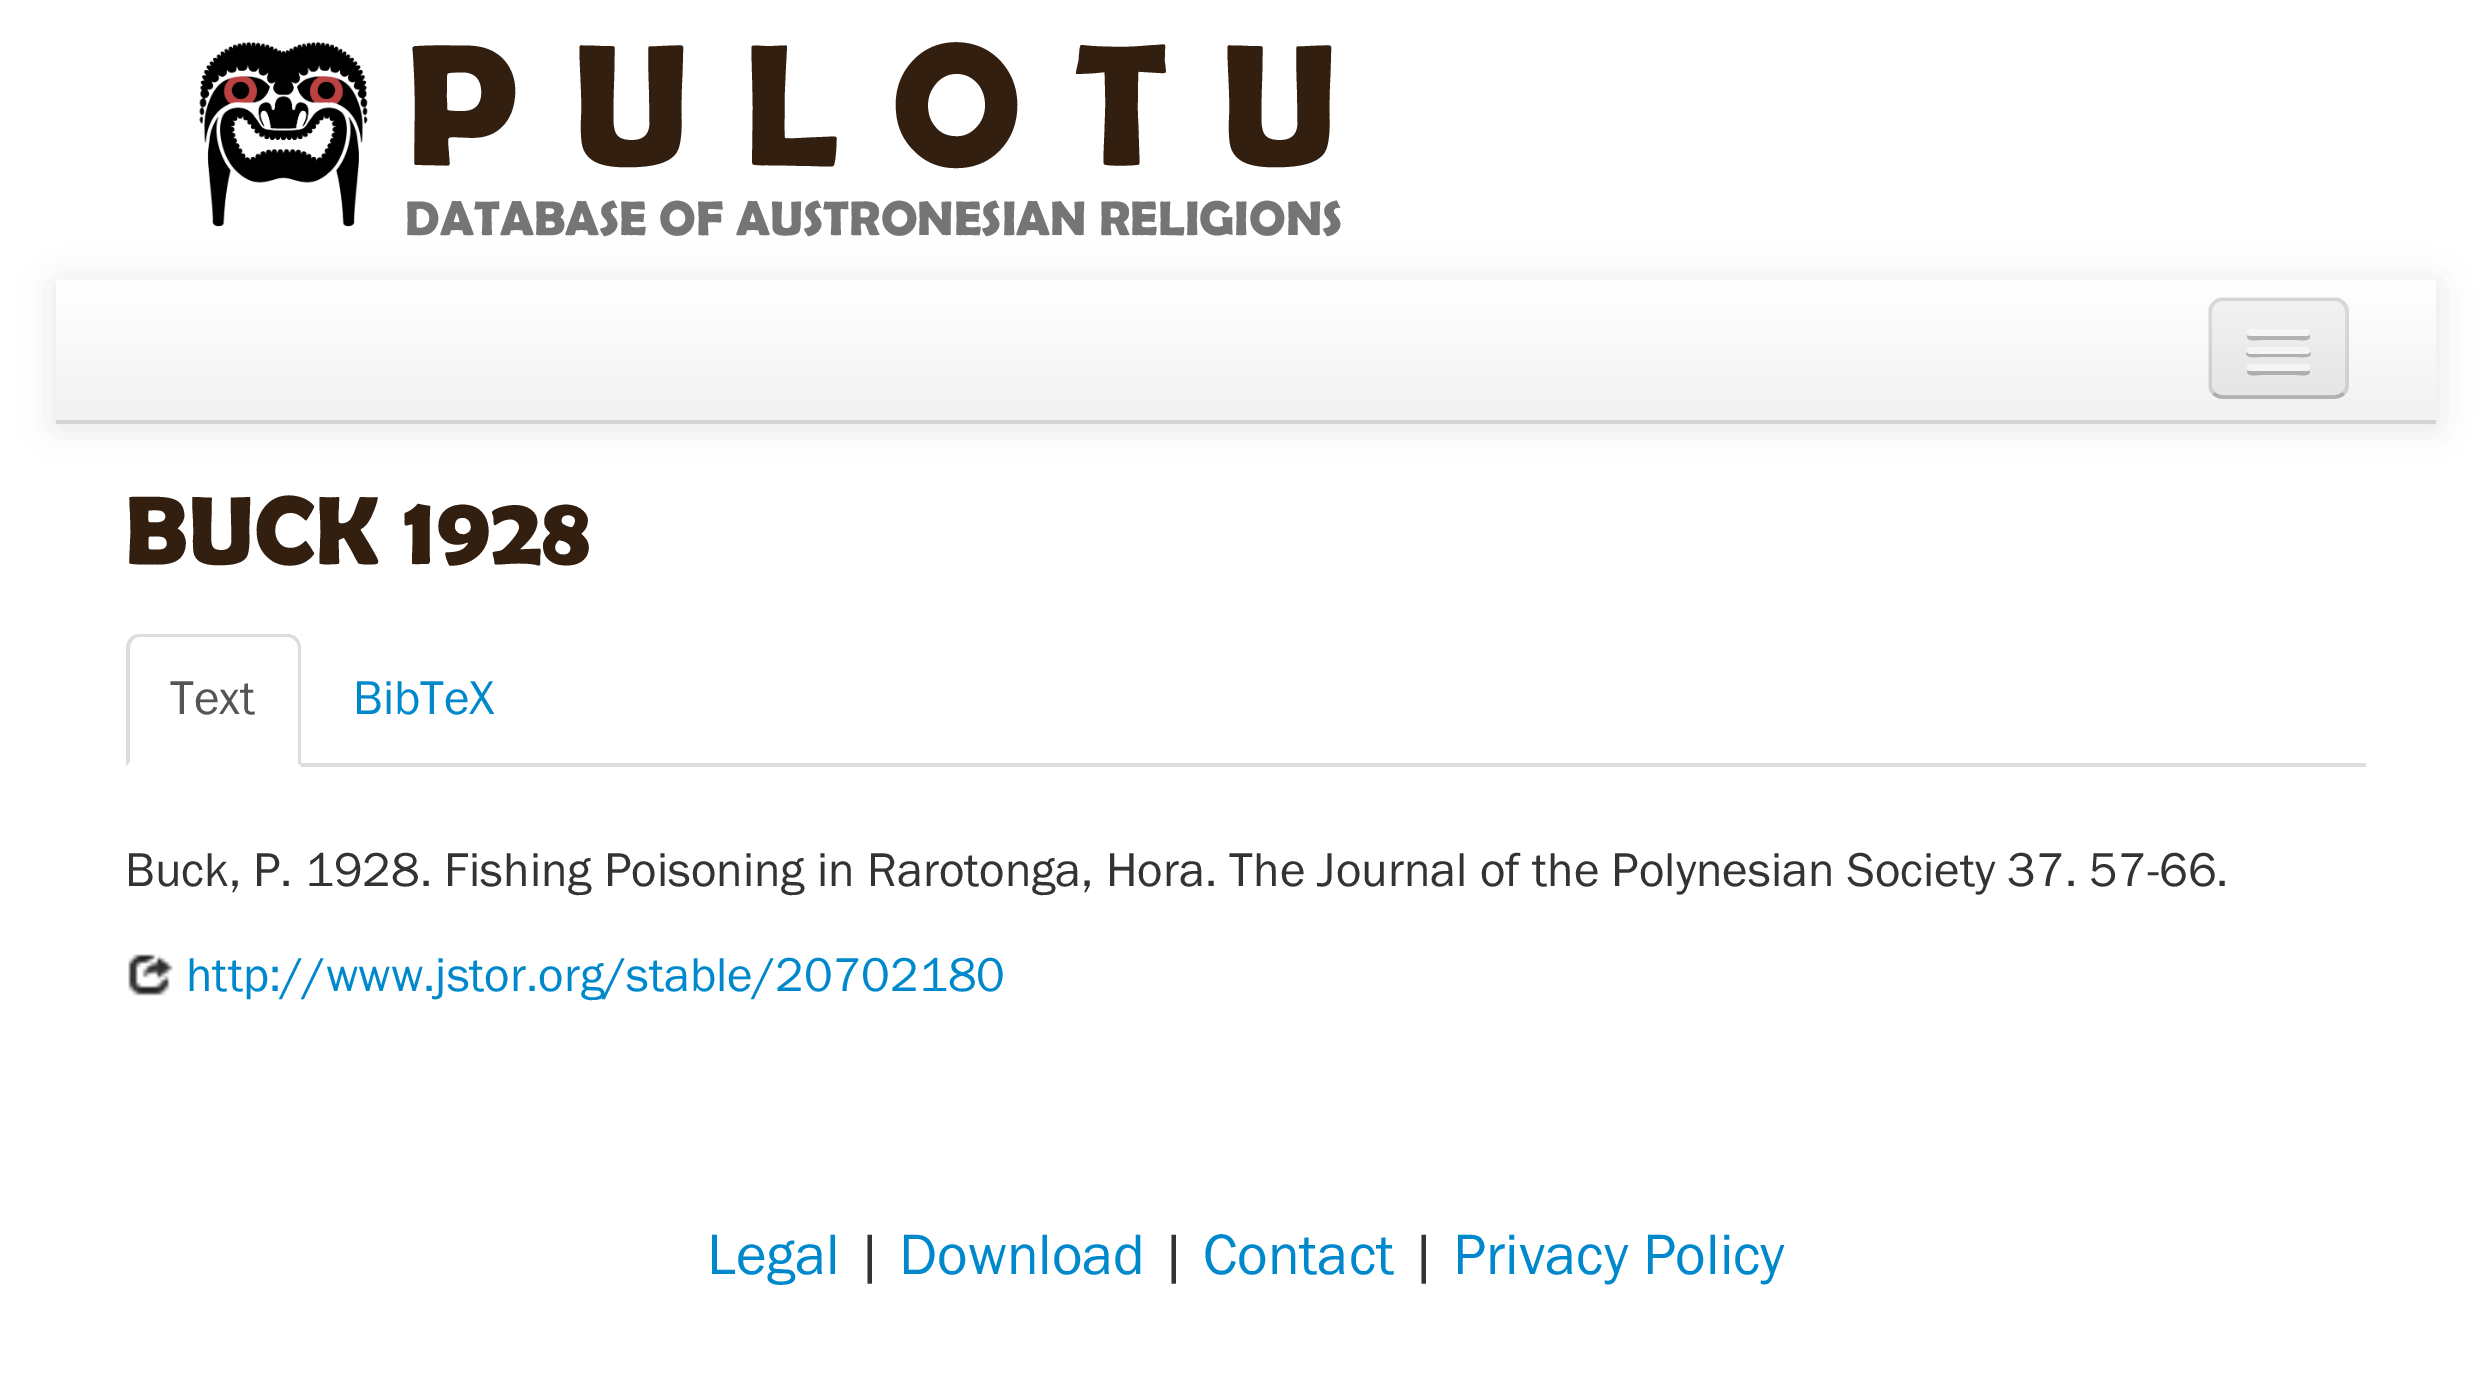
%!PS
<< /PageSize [2491 1387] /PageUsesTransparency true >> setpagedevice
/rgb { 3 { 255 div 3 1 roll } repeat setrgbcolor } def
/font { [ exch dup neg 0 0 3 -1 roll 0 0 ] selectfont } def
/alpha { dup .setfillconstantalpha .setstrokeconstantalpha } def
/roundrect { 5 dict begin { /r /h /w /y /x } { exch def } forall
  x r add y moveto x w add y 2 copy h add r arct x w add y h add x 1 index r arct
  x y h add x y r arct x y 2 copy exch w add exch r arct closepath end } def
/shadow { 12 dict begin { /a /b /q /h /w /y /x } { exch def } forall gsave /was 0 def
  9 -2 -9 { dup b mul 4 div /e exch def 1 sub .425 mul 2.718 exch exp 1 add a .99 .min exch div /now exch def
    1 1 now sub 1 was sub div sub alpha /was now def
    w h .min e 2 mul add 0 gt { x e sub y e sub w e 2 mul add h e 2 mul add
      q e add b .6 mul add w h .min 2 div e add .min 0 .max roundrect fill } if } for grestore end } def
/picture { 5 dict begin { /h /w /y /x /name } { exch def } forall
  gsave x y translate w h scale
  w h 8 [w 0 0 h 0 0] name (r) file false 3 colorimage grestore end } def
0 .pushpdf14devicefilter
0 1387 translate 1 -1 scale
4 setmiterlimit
255 255 255 rgb
0 0 2491 1387 rectfill
(img/1.rgb) 199 41 169 186 picture
0 0 0 rgb
56 284 2380 143 0 17.5 0.1 shadow
gsave 56 280 moveto 2436 280 lineto 2436 420 lineto 56 420 lineto closepath clip newpath
<< /ShadingType 2 /ColorSpace /DeviceRGB /Coords [1246 280 1246 420] /Extend [true true] /Function << /FunctionType 2 /Domain [0 1] /C0 [1 1 1] /C1 [0.949 0.949 0.949] /N 1 >> >> shfill grestore
212 212 212 rgb
56 420 2380 4 rectfill
237 237 237 rgb
2209 298 140 101 14 roundrect fill
gsave
2209 298 140 101 14 roundrect clip newpath
gsave 2209 301 moveto 2349 301 lineto 2349 396 lineto 2209 396 lineto closepath clip newpath
<< /ShadingType 2 /ColorSpace /DeviceRGB /Coords [2279 301 2279 396] /Extend [true true] /Function << /FunctionType 2 /Domain [0 1] /C0 [0.949 0.949 0.949] /C1 [0.898 0.898 0.898] /N 1 >> >> shfill grestore
grestore
0.25 alpha
0 0 0 rgb
3.5 setlinewidth
2343 393.5 moveto 2341 396 2337.5 397 2334.5 397 curveto 2222.5 397 lineto 2219.5 397 2216 396 2214 393.5 curveto stroke
0.1 alpha
2214 393.5 moveto 2211.5 391.5 2210 388 2210 385 curveto 2210 311.5 lineto 2210 308.5 2211.5 305 2214 303 curveto 2216 300.5 2219.5 299 2222.5 299 curveto 2334.5 299 lineto 2337.5 299 2341 300.5 2343 303 curveto 2345.5 305 2347 308.5 2347 311.5 curveto 2347 385 lineto 2347 388 2345.5 391.5 2343 393.5 curveto stroke
1 alpha
178 178 178 rgb
2248 334 moveto 2247 337 lineto 2248 342 2258 340 2260 340 curveto 2297 340 lineto 2299 340 2309 342 2310 337 curveto 2309 334 lineto 2307 336 lineto 2250 336 lineto closepath fill
245 245 245 rgb
2247 329 63 7 3.5 roundrect fill
176 176 176 rgb
2247 352 moveto 2243 359 2259 357 2260 357 curveto 2297 357 lineto 2298 357 2314 359 2310 352 curveto 2309 353 2308 354 2306 354 curveto 2250 354 lineto 2249 354 2248 353 2247 352 curveto closepath fill
245 245 245 rgb
2247 347 63 7 3.5 roundrect fill
174 174 174 rgb
2248 370 moveto 2247 372 lineto 2248 377 2258 375 2260 375 curveto 2297 375 lineto 2299 375 2309 377 2310 372 curveto 2309 370 lineto 2307 371 lineto 2250 371 lineto closepath fill
245 245 245 rgb
2247 364 63 7 3.5 roundrect fill
221 221 221 rgb
301 763 2065 4 rectfill
140 634 moveto 136 634 133 635 130 638 curveto 133 640 lineto 134 638 137 637 140 637 curveto 287 637 lineto 290 637 293 638 294 640 curveto 297 638 lineto 294 635 291 634 287 634 curveto closepath fill
297 638 moveto 299 640 301 644 301 648 curveto 301 766 lineto 298 763 lineto 298 648 lineto 298 645 297 642 294 640 curveto closepath fill
126 648 moveto 126 766 lineto 130 762 lineto 130 648 lineto 130 645 131 642 133 640 curveto 130 638 lineto 128 640 126 644 126 648 curveto closepath fill
(img/2.rgb) 128 954 45 42 picture
/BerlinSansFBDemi-SemiBold 175 font
50 31 16 rgb
405 165 moveto 52.5 0 (PULOTU) ashow
/BerlinSansFBDemi-SemiBold 49 font
117 117 117 rgb
405 235 moveto (DATABASE OF AUSTRONESIAN RELIGIONS) show
/BerlinSansFBDemi-SemiBold 98 font
50 31 16 rgb
125 564 moveto (BUCK 1928) show
/FranklinGothic-Regular 49 font
85 85 85 rgb
170 714 moveto (Text) show
0 136 204 rgb
353 714 moveto (BibTeX) show
51 51 51 rgb
125 886 moveto (Buck, P. 1928. Fishing Poisoning in Rarotonga, Hora. The Journal of the Polynesian Society 37. 57-66.) show
0 136 204 rgb
186 991 moveto (http://www.jstor.org/stable/20702180) show
/FranklinGothic-Regular 58.75 font
707 1274 moveto (Legal) show
51 51 51 rgb
855 1274 moveto (|) show
0 136 204 rgb
899 1274 moveto (Download) show
51 51 51 rgb
1159 1274 moveto (|) show
0 136 204 rgb
1203 1274 moveto (Contact) show
51 51 51 rgb
1409 1274 moveto (|) show
0 136 204 rgb
1453 1274 moveto (Privacy Policy) show
.poppdf14devicefilter showpage
